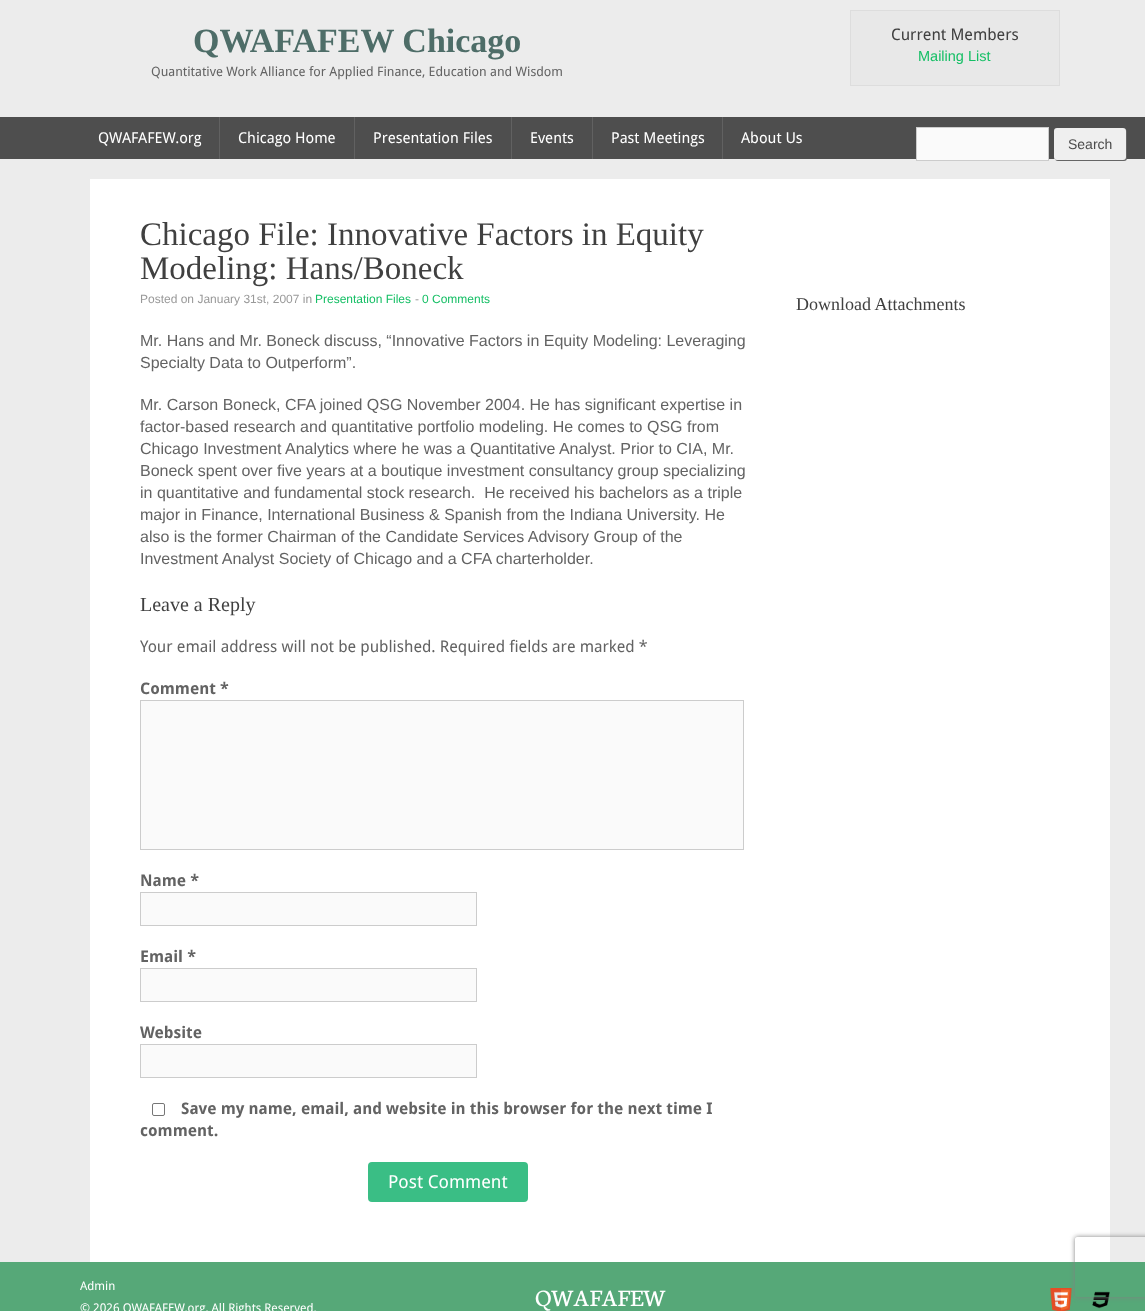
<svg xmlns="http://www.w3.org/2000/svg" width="1145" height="1311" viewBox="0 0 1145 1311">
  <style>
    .t1 { font: bold 34px Liberation Serif; fill: #4e6d68; }
    .t2 { font: 13px Droid Sans; fill: #636363; }
    .t3 { font: 16px Droid Sans; fill: #404040; }
    .t4 { font: 14.5px Liberation Sans; fill: #15bf65; }
    .t5 { font: 15px Droid Sans; fill: #fff; }
    .t6 { font: 14px Liberation Sans; fill: #4a4a4a; }
    .t7 { font: 33px Liberation Serif; fill: #404040; }
    .t8 { font: 12px Liberation Sans; fill: #999; }
    .t9 { font: 12px Liberation Sans; fill: #15bf65; }
    .t10 { font: 16px Liberation Sans; fill: #636363; }
    .t11 { font: 20px Liberation Serif; fill: #404040; }
    .t12 { font: 16px Droid Sans; fill: #636363; }
    .t13 { font: bold 16px Droid Sans; fill: #636363; }
    .t14 { font: 18px Droid Sans; fill: #fff; }
    .t15 { font: 18px Liberation Serif; fill: #404040; }
    .t16 { font: 12px Droid Sans; fill: #fff; }
    .t17 { font: 25px Neuton; fill: #fff; }
  </style>
  <defs>
    <clipPath id="clip1"><path d="M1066 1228H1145V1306H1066ZM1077 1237H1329C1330 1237 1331 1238 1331 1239V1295C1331 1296 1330 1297 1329 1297H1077C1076 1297 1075 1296 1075 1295V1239C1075 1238 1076 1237 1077 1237Z" clip-rule="evenodd"/></clipPath>
  </defs>
  <rect width="100%" height="100%" fill="#ececec"/>
  <text x="193" y="52" class="t1">QWAFAFEW Chicago</text>
  <text x="151" y="76" class="t2">Quantitative Work Alliance for Applied Finance, Education and Wisdom</text>
  <rect x="850.5" y="10.5" width="209" height="75" fill="#e8e8e8" stroke="#ddd"/>
  <text x="891" y="40" class="t3">Current Members</text>
  <text x="918" y="61" class="t4">Mailing List</text>
  <rect x="0" y="117" width="1145" height="42" fill="#4e4e4e"/>
  <rect x="219" y="117" width="1" height="42" fill="#616161"/>
  <text x="98" y="143" class="t5">QWAFAFEW.org</text>
  <rect x="354" y="117" width="1" height="42" fill="#616161"/>
  <text x="238" y="143" class="t5">Chicago Home</text>
  <rect x="511" y="117" width="1" height="42" fill="#616161"/>
  <text x="373" y="143" class="t5">Presentation Files</text>
  <rect x="592" y="117" width="1" height="42" fill="#616161"/>
  <text x="530" y="143" class="t5">Events</text>
  <rect x="722" y="117" width="1" height="42" fill="#616161"/>
  <text x="611" y="143" class="t5">Past Meetings</text>
  <text x="741" y="143" class="t5">About Us</text>
  <rect x="916.5" y="127.5" width="132" height="33" fill="#fafafa" stroke="#ccc"/>
  <rect x="1055" y="129" width="72" height="32" rx="3" fill="#656565" filter="blur(0.5px)"/>
  <rect x="1054" y="128" width="72" height="32" rx="3" fill="#efefef"/>
  <text x="1068" y="149" class="t6">Search</text>
  <rect x="90" y="179" width="1020" height="1083" fill="#fff"/>
  <text x="140" y="245" class="t7">Chicago File: Innovative Factors in Equity</text>
  <text x="140" y="279" class="t7">Modeling: Hans/Boneck</text>
  <text x="140" y="303" class="t8">Posted on January 31st, 2007 in</text>
  <text x="315" y="303" class="t9">Presentation Files</text>
  <text x="415" y="303" class="t8">-</text>
  <text x="422" y="303" class="t9">0 Comments</text>
  <text x="140" y="346" class="t10">Mr. Hans and Mr. Boneck discuss, “Innovative Factors in Equity Modeling: Leveraging</text>
  <text x="140" y="368" class="t10">Specialty Data to Outperform”.</text>
  <text x="140" y="410" class="t10">Mr. Carson Boneck, CFA joined QSG November 2004. He has significant expertise in</text>
  <text x="140" y="432" class="t10">factor-based research and quantitative portfolio modeling. He comes to QSG from</text>
  <text x="140" y="454" class="t10">Chicago Investment Analytics where he was a Quantitative Analyst. Prior to CIA, Mr.</text>
  <text x="140" y="476" class="t10">Boneck spent over five years at a boutique investment consultancy group specializing</text>
  <text x="140" y="498" class="t10" xml:space="preserve">in quantitative and fundamental stock research.  He received his bachelors as a triple</text>
  <text x="140" y="520" class="t10">major in Finance, International Business &amp; Spanish from the Indiana University. He</text>
  <text x="140" y="542" class="t10">also is the former Chairman of the Candidate Services Advisory Group of the</text>
  <text x="140" y="564" class="t10">Investment Analyst Society of Chicago and a CFA charterholder.</text>
  <text x="140" y="611" class="t11">Leave a Reply</text>
  <text x="140" y="652" class="t12">Your email address will not be published. Required fields are marked *</text>
  <text x="140" y="694" class="t13">Comment *</text>
  <rect x="140.5" y="700.5" width="603" height="149" fill="#fafafa" stroke="#ccc"/>
  <text x="140" y="886" class="t13">Name *</text>
  <rect x="140.5" y="892.5" width="336" height="33" fill="#fafafa" stroke="#ccc"/>
  <text x="140" y="962" class="t13">Email *</text>
  <rect x="140.5" y="968.5" width="336" height="33" fill="#fafafa" stroke="#ccc"/>
  <text x="140" y="1038" class="t13">Website</text>
  <rect x="140.5" y="1044.5" width="336" height="33" fill="#fafafa" stroke="#ccc"/>
  <rect x="152.5" y="1103.5" width="12" height="12" rx="1.5" fill="none" stroke="#767676"/>
  <text x="181" y="1114" class="t13">Save my name, email, and website in this browser for the next time I</text>
  <text x="140" y="1136" class="t13">comment.</text>
  <rect x="368" y="1162" width="160" height="40" rx="4" fill="#3abe85"/>
  <text x="388" y="1188" class="t14">Post Comment</text>
  <text x="796" y="310" class="t15">Download Attachments</text>
  <rect x="0" y="1262" width="1145" height="49" fill="#56a878"/>
  <text x="80" y="1290" class="t16">Admin</text>
  <text x="80" y="1312" class="t16">© 2026 QWAFAFEW.org, All Rights Reserved.</text>
  <text x="535" y="1306" class="t17">QWAFAFEW</text>
  <image x="1050" y="1288" width="23" height="23" href="images/1.png"/>
  <image x="1092" y="1291" width="18" height="18" href="images/2.png"/>
  <g clip-path="url(#clip1)">
    <rect x="1075" y="1237" width="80" height="60" rx="2" fill="#808080" filter="blur(2.5px)"/>
  </g>
</svg>
